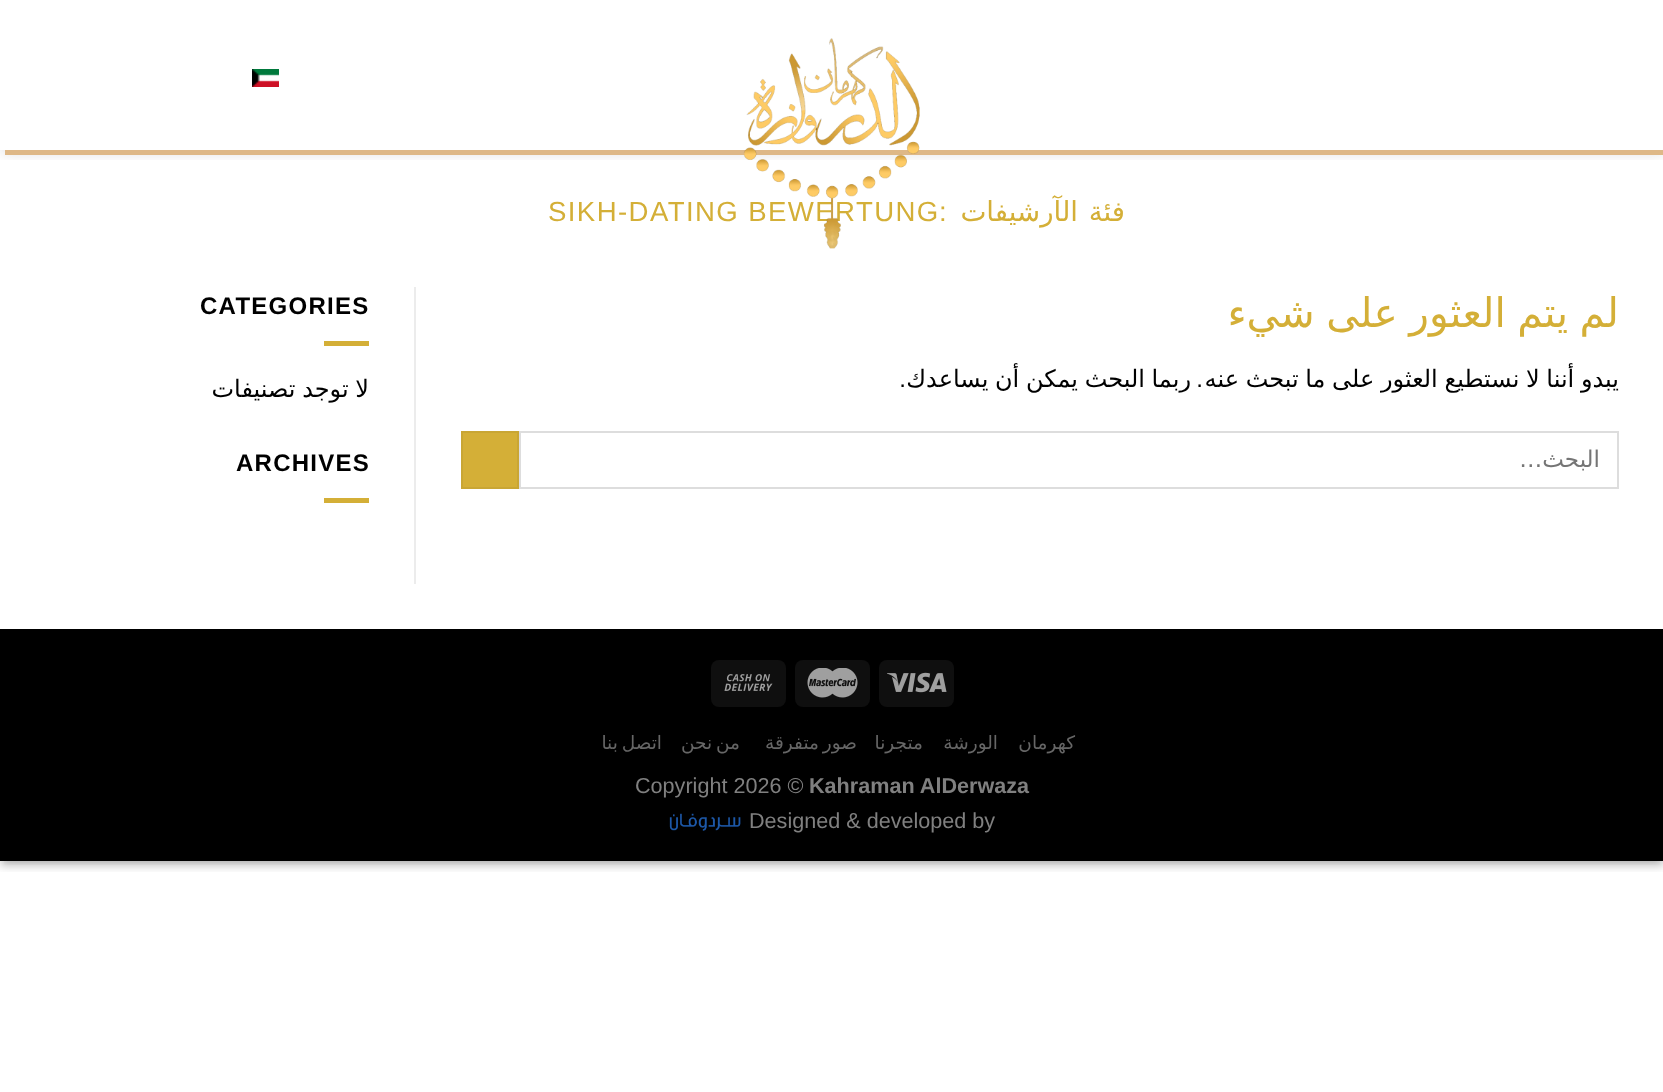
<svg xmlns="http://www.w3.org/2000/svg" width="1663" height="1092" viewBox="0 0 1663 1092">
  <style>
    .t1 { font: 27.6px Liberation Sans; letter-spacing: 1.4px; fill: #d4af37; }
    .t2 { font: 27.6px DejaVu Sans; letter-spacing: 1.4px; direction: rtl; fill: #d4af37; }
    .t3 { font: 27.6px Liberation Sans; letter-spacing: 1.4px; direction: rtl; fill: #d4af37; }
    .t4 { font: 40.75px DejaVu Sans; direction: rtl; fill: #d4af37; }
    .t5 { font: 24px DejaVu Sans; direction: rtl; fill: #000; }
    .t6 { font: 24px Liberation Sans; direction: rtl; fill: #000; }
    .t7 { font: 23px DejaVu Sans; direction: rtl; fill: #757575; }
    .t8 { font: bold 24px Liberation Sans; letter-spacing: 1.25px; fill: #000; }
    .t9 { font: 18.5px DejaVu Sans; letter-spacing: 1px; direction: rtl; fill: #666; }
    .t10 { font: bold 21.6px Liberation Sans; fill: #808080; }
    .t11 { font: 21.6px Liberation Sans; fill: #808080; }
  </style>
  <defs>
    <clipPath id="clip1"><rect x="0" y="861" width="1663" height="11"/></clipPath>
    <clipPath id="clip2"><rect x="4" y="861" width="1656" height="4"/></clipPath>
    <clipPath id="clip3"><rect x="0" y="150" width="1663" height="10"/></clipPath>
  </defs>
  <rect width="100%" height="100%" fill="#fff"/>
  <g clip-path="url(#clip1)">
    <rect x="0" y="5" width="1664" height="861" fill="#0000003b" filter="blur(4.5px)"/>
  </g>
  <g clip-path="url(#clip2)">
    <rect x="6" y="11" width="1652" height="849" fill="#00000029" filter="blur(4.5px)"/>
  </g>
  <g clip-path="url(#clip3)">
    <rect x="2" y="2" width="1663" height="150" fill="#00000026" filter="blur(7.5px)"/>
  </g>
  <path d="M5 150V155H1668V5H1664V150Z" fill="#deb887"/>
  <text x="548" y="221" class="t1">SIKH-DATING BEWERTUNG</text>
  <image x="743" y="38" width="177" height="211" href="images/1.png"/>
  <image x="252" y="69" width="27" height="18" href="images/2.png"/>
  <text x="1125" y="221" class="t2">فئة</text>
  <text x="1078" y="221" class="t2">الآرشيفات</text>
  <text x="948" y="221" class="t3">:</text>
  <text x="1619" y="327" word-spacing="-1.5" class="t4">لم يتم العثور على شيء</text>
  <text x="1619" y="387" word-spacing="-1" class="t5">يبدو أننا لا نستطيع العثور على ما تبحث عنه</text>
  <text x="1203" y="387" class="t6">.</text>
  <text x="1191" y="387" word-spacing="-1" class="t5">ربما البحث يمكن أن يساعدك</text>
  <text x="906" y="387" class="t6">.</text>
  <rect x="520" y="432" width="1098" height="56" fill="none" stroke="#ddd" stroke-width="2"/>
  <text x="1600" y="467" class="t7">البحث…</text>
  <rect x="462" y="432" width="56" height="56" fill="#d4af37" stroke="#c9a634" stroke-width="2"/>
  <rect x="414" y="287" width="2" height="297" fill="#ececec"/>
  <text x="200" y="314" class="t8">CATEGORIES</text>
  <rect x="324" y="341" width="45" height="5" fill="#d4af37"/>
  <text x="369" y="397" word-spacing="-1" class="t5">لا توجد تصنيفات</text>
  <text x="236" y="471" class="t8">ARCHIVES</text>
  <rect x="324" y="498" width="45" height="5" fill="#d4af37"/>
  <rect x="0" y="629" width="1663" height="232" fill="#000"/>
  <rect x="879" y="660" width="75" height="47" rx="8" fill="#0f0f0f"/>
  <image x="887" y="672" width="60" height="21" href="images/3.png"/>
  <rect x="795" y="660" width="75" height="47" rx="8" fill="#0f0f0f"/>
  <image x="807" y="668" width="51" height="30" href="images/4.png"/>
  <rect x="711" y="660" width="75" height="47" rx="8" fill="#0f0f0f"/>
  <image x="724" y="674" width="49" height="17" href="images/5.png"/>
  <text x="1075" y="749" class="t9">كهرمان</text>
  <text x="998" y="749" class="t9">الورشة</text>
  <text x="923" y="749" class="t9">متجرنا</text>
  <text x="857" y="749" word-spacing="-2" class="t9">صور متفرقة</text>
  <text x="740" y="749" word-spacing="-2" class="t9">من نحن</text>
  <text x="662" y="749" word-spacing="-2" class="t9">اتصل بنا</text>
  <text x="809" y="793" class="t10">Kahraman AlDerwaza</text>
  <text x="635" y="793" class="t11">Copyright 2026 ©</text>
  <text x="749" y="828" class="t11">Designed &amp; developed by</text>
  <image x="669" y="813" width="72" height="18" href="images/6.png"/>
</svg>
